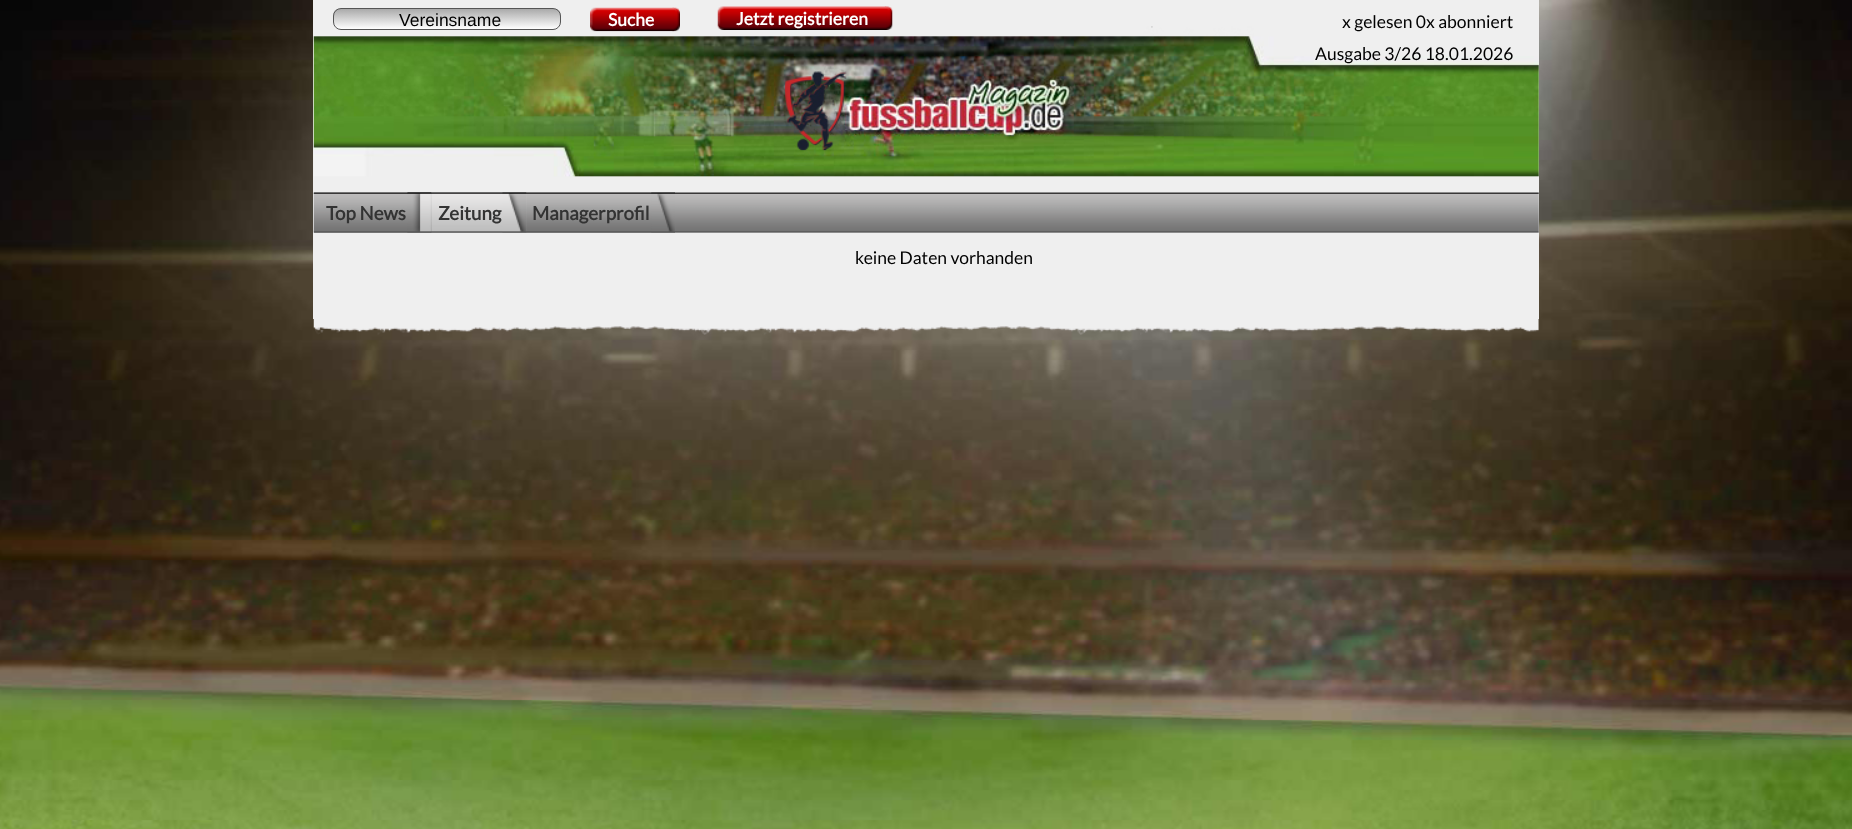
<svg xmlns="http://www.w3.org/2000/svg" width="1852" height="829" viewBox="0 0 1852 829">
  <style>
    .t1 { font: 17.5px Liberation Sans; fill: #000; }
    .t2 { font: bold 17.5px Lato; fill: #fff; }
    .t3 { font: 17.5px Lato; fill: #000; }
    .t4 { font: bold 18.75px Lato; fill: #333; }
  </style>
  <defs>
    <clipPath id="clip1"><rect x="333" y="8" width="228" height="22" rx="8"/></clipPath>
    <linearGradient id="g1" gradientUnits="userSpaceOnUse" x1="334" y1="9" x2="334" y2="29"><stop offset="0" stop-color="#aaa"/><stop offset="1" stop-color="#fff"/></linearGradient>
  </defs>
  <rect width="100%" height="100%" fill="#fff"/>
  <image x="0" y="0" width="1852" height="829" href="images/1.png"/>
  <rect x="313" y="0" width="1226" height="319" fill="#efefef"/>
  <image x="313" y="26" width="1226" height="151" href="images/2.png"/>
  <g clip-path="url(#clip1)">
    <rect x="333" y="9" width="228" height="20" fill="url(#g1)"/>
  </g>
  <rect x="333.5" y="8.5" width="227" height="21" rx="7.5" fill="none" stroke="#555"/>
  <text x="399" y="26" class="t1">Vereinsname</text>
  <image x="672" y="7" width="8" height="25" href="images/3.png"/>
  <image x="590" y="7" width="84" height="25" href="images/4.png"/>
  <text x="608" y="26" class="t2">Suche</text>
  <image x="884" y="6" width="9" height="24" href="images/5.png"/>
  <image x="717" y="6" width="170" height="24" href="images/6.png"/>
  <text x="736" y="25" class="t2">Jetzt registrieren</text>
  <text x="1342" y="28" class="t3">x gelesen 0x abonniert</text>
  <text x="1315" y="60" class="t3">Ausgabe 3/26 18.01.2026</text>
  <image x="313" y="192" width="1226" height="41" href="images/7.png"/>
  <image x="313" y="192" width="119" height="41" href="images/8.png"/>
  <image x="407" y="192" width="25" height="41" href="images/9.png"/>
  <text x="326" y="220" class="t4">Top News</text>
  <image x="431" y="192" width="96" height="41" href="images/10.png"/>
  <image x="407" y="192" width="25" height="41" href="images/11.png"/>
  <image x="502" y="192" width="25" height="41" href="images/12.png"/>
  <text x="438" y="220" class="t4">Zeitung</text>
  <image x="526" y="192" width="149" height="41" href="images/13.png"/>
  <image x="651" y="192" width="24" height="41" href="images/14.png"/>
  <text x="532" y="220" class="t4">Managerprofil</text>
  <text x="855" y="264" class="t3">keine Daten vorhanden</text>
  <image x="313" y="319" width="1226" height="16" href="images/15.png"/>
</svg>
